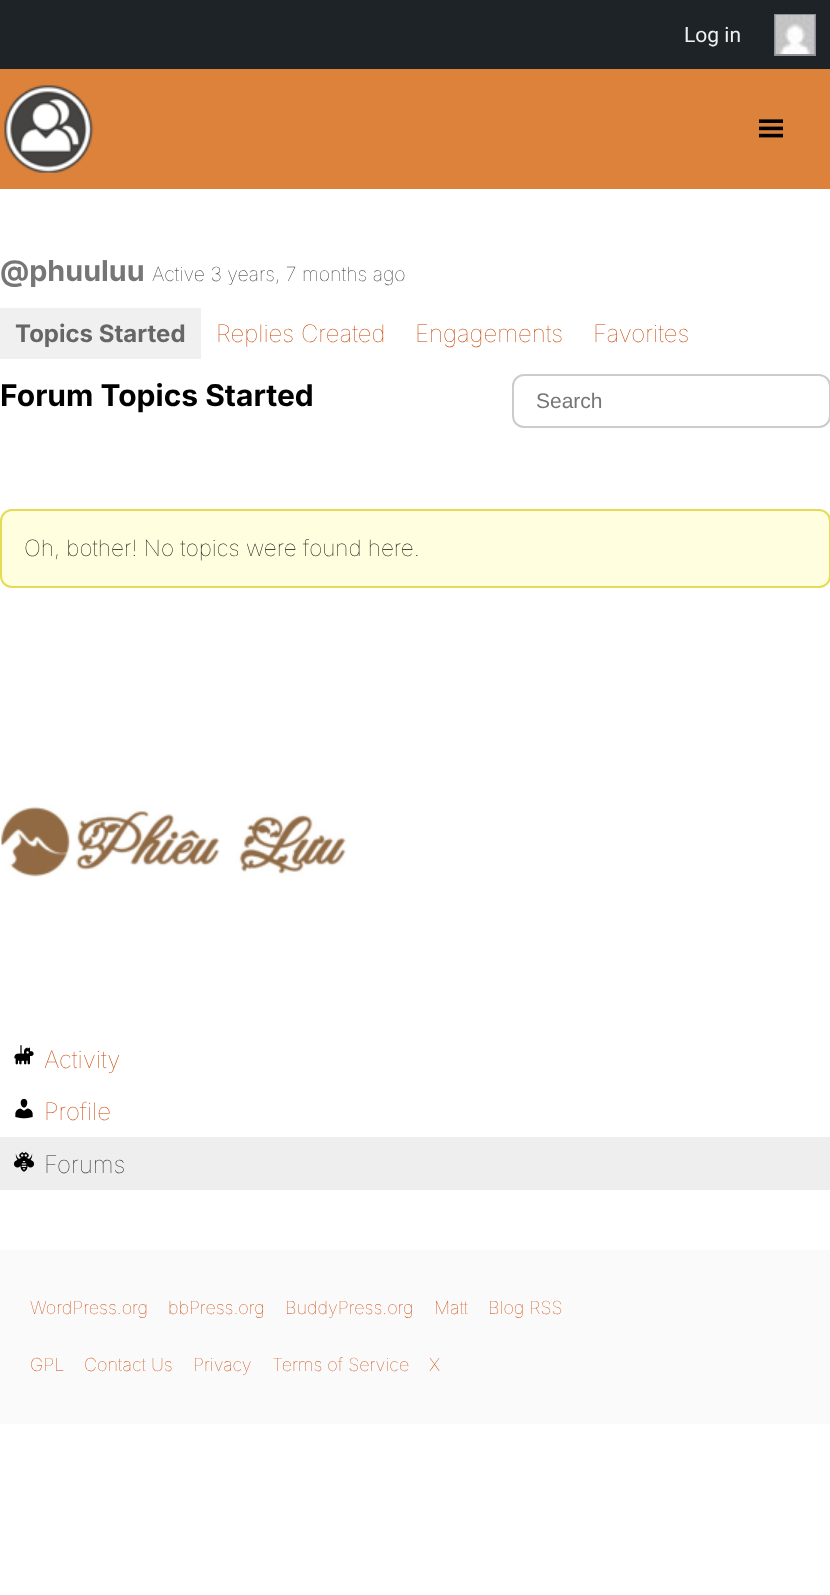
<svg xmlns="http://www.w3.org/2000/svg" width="830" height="1595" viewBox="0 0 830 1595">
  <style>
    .t1 { font: 21px Roboto; fill: #f0f0f1; }
    .t2 { font: bold 28.75px Inter; fill: #767676; }
    .t3 { font: 100 19.5px Inter; fill: #222; }
    .t4 { font: bold 24px Inter; fill: #666; }
    .t5 { font: 100 24px Inter; fill: #c74200; }
    .t6 { font: bold 30px Inter; fill: #000; }
    .t7 { font: 21px Liberation Sans; fill: #767676; }
    .t8 { font: 100 22.5px Inter; fill: #000; }
    .t9 { font: 100 24px Inter; fill: #222; }
    .t10 { font: 100 18px Inter; fill: #c74200; }
  </style>
  <rect width="100%" height="100%" fill="#fff"/>
  <rect x="0" y="0" width="830" height="69" fill="#1d2327"/>
  <text x="684" y="42" class="t1">Log in</text>
  <rect x="775" y="15" width="40" height="40" fill="none" stroke="#8c8f94" stroke-width="2"/>
  <image x="775" y="15" width="40" height="39" href="images/1.png"/>
  <rect x="0" y="69" width="830" height="120" fill="#dd823b"/>
  <image x="4" y="85" width="90" height="88" href="images/2.png"/>
  <image x="759" y="119" width="24" height="19" href="images/3.png"/>
  <text x="0" y="281" class="t2">@phuuluu</text>
  <text x="152" y="281" class="t3">Active 3 years, 7 months ago</text>
  <rect x="0" y="308" width="201" height="51" fill="#f0f0f0"/>
  <text x="15" y="342" class="t4">Topics Started</text>
  <text x="216" y="342" class="t5">Replies Created</text>
  <text x="415" y="342" class="t5">Engagements</text>
  <text x="593" y="342" class="t5">Favorites</text>
  <text x="0" y="406" class="t6">Forum Topics Started</text>
  <rect x="513" y="375" width="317" height="52" rx="11" fill="none" stroke="#ccc" stroke-width="2"/>
  <text x="536" y="408" class="t7">Search</text>
  <rect x="1" y="510" width="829" height="77" rx="11" fill="#ffffe0" stroke="#e6db55" stroke-width="2"/>
  <text x="24" y="556" class="t8">Oh, bother! No topics were found here.</text>
  <image x="1" y="806" width="345" height="71" href="images/4.png"/>
  <image x="14" y="1045" width="20" height="20" href="images/5.png"/>
  <text x="44" y="1068" class="t5">Activity</text>
  <image x="15" y="1098" width="18" height="21" href="images/6.png"/>
  <text x="44" y="1120" class="t5">Profile</text>
  <rect x="0" y="1137" width="830" height="53" fill="#eee"/>
  <image x="13" y="1151" width="22" height="21" href="images/7.png"/>
  <text x="44" y="1173" class="t9">Forums</text>
  <rect x="0" y="1250" width="830" height="174" fill="#fafafa"/>
  <text x="30" y="1314" class="t10">WordPress.org</text>
  <text x="168" y="1314" class="t10">bbPress.org</text>
  <text x="285" y="1314" class="t10">BuddyPress.org</text>
  <text x="434" y="1314" class="t10">Matt</text>
  <text x="488" y="1314" class="t10">Blog RSS</text>
  <text x="30" y="1371" class="t10">GPL</text>
  <text x="84" y="1371" class="t10">Contact Us</text>
  <text x="193" y="1371" class="t10">Privacy</text>
  <text x="272" y="1371" class="t10">Terms of Service</text>
  <text x="429" y="1371" class="t10">X</text>
</svg>
